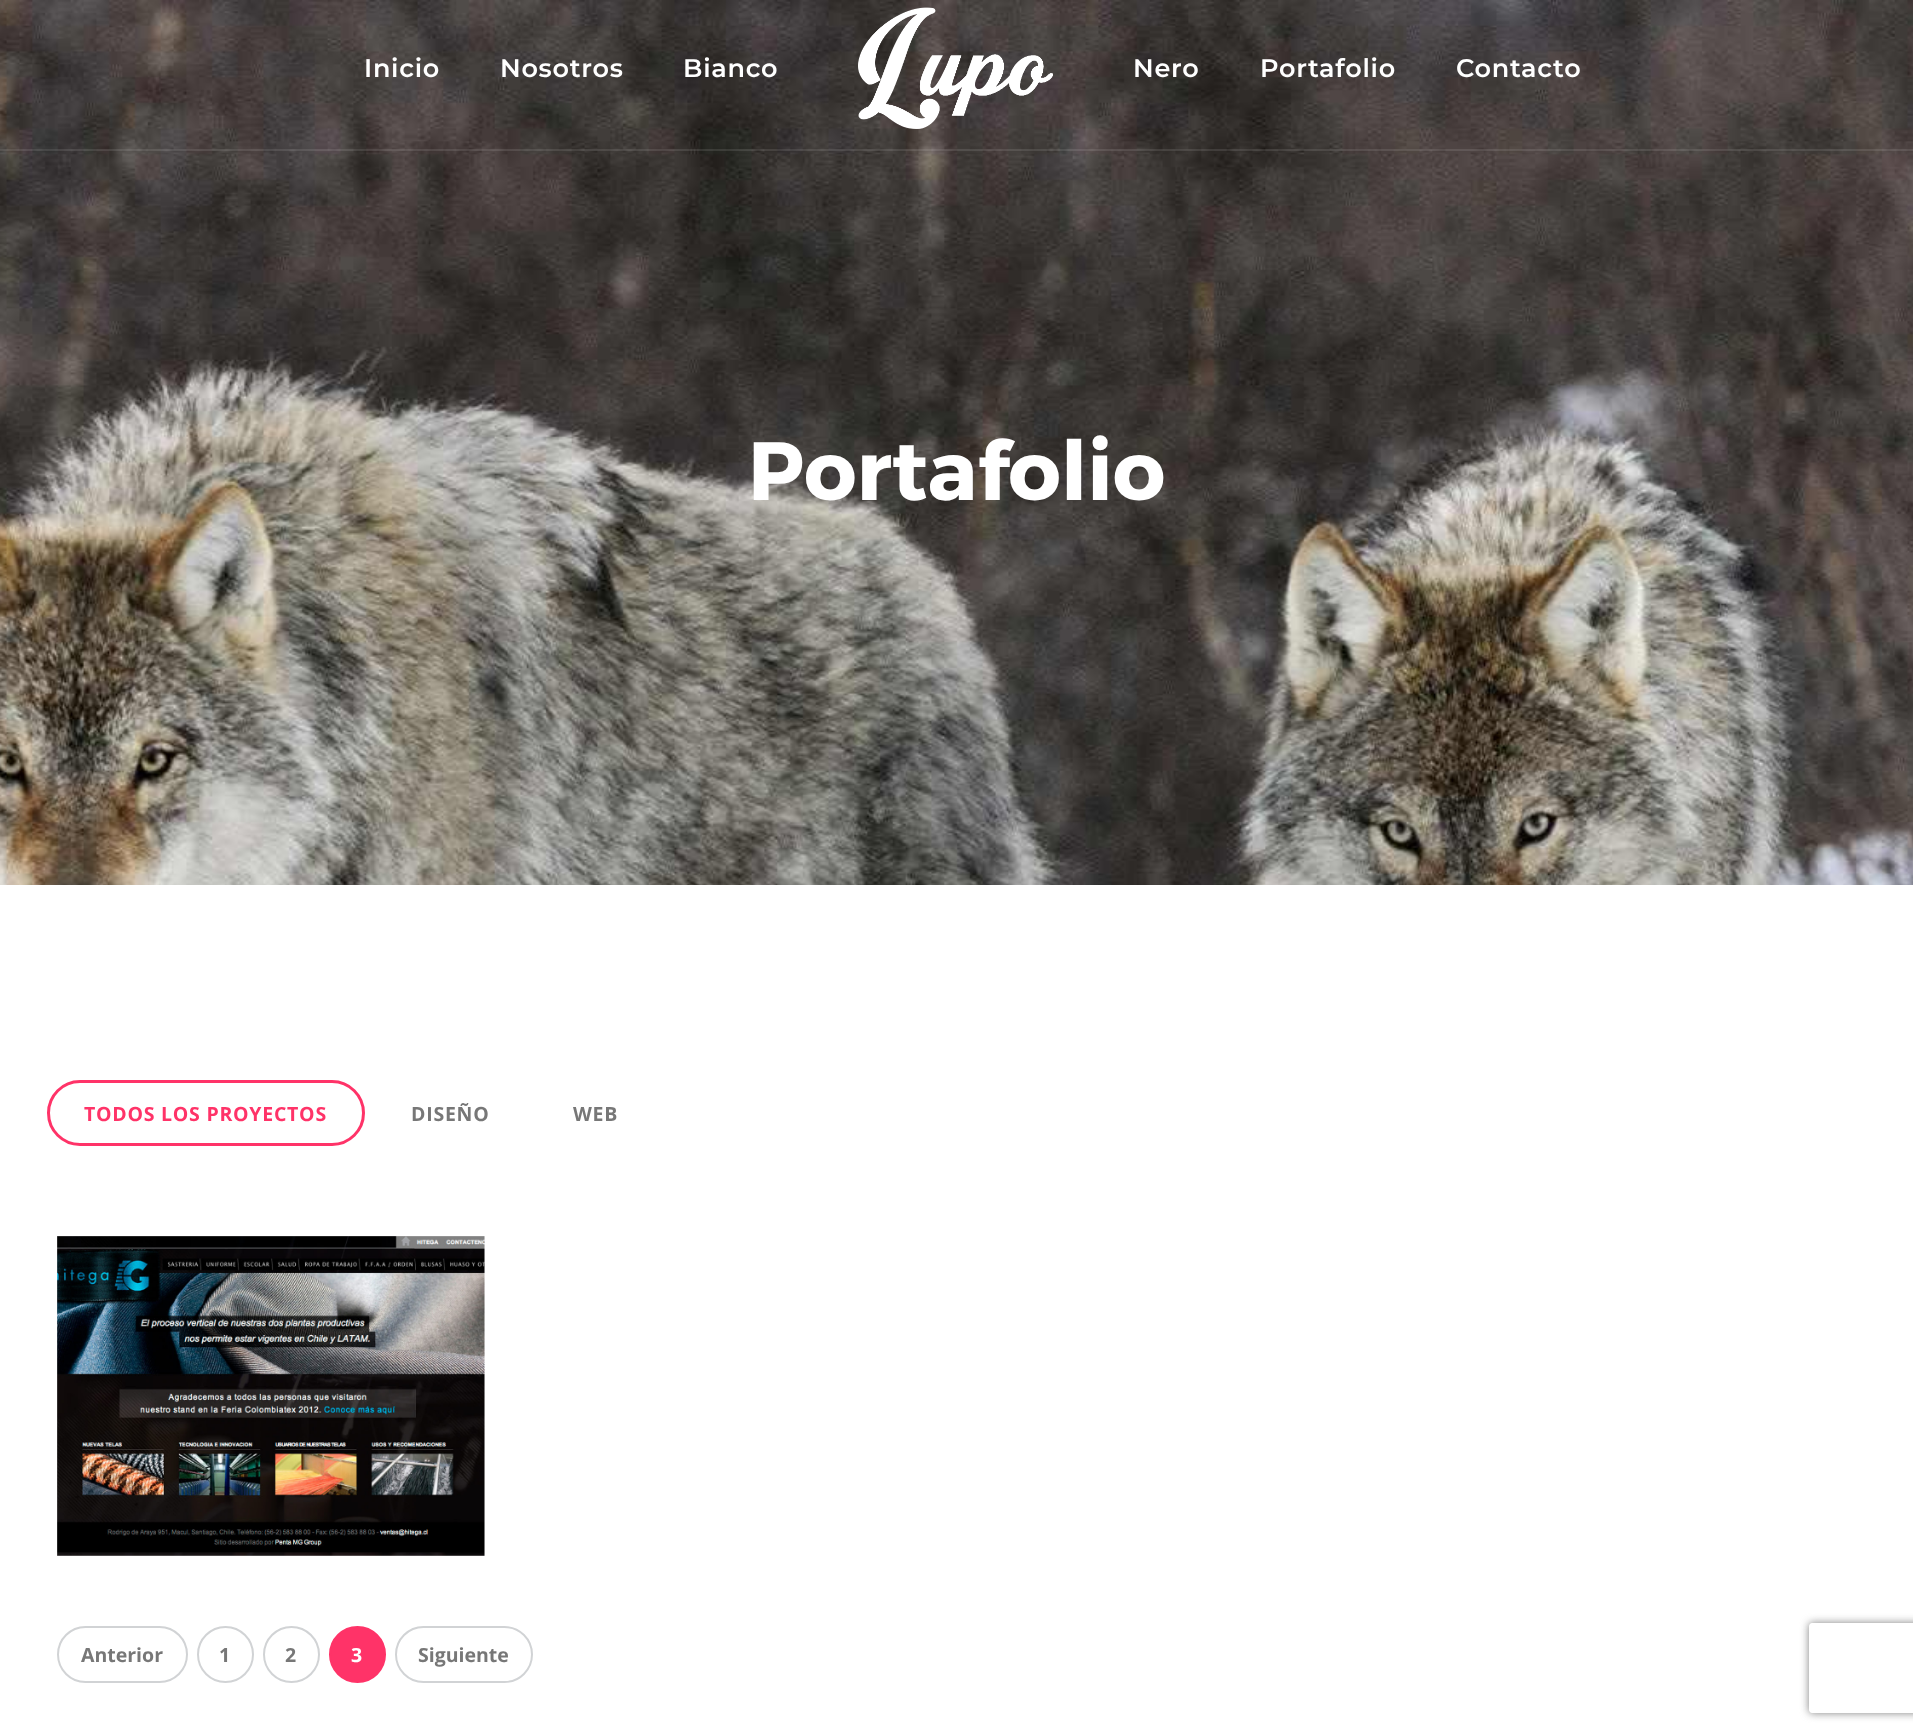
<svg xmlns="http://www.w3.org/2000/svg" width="1913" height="1733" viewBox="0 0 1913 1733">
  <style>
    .t1 { font: 600 25.5px Montserrat; letter-spacing: 0.75px; fill: #fff; }
    .t2 { font: bold 82.5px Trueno; fill: #fff; }
    .t3 { font: bold 19.5px Open Sans; letter-spacing: 0.75px; fill: #ff3368; }
    .t4 { font: bold 19.5px Open Sans; letter-spacing: 0.75px; fill: #777; }
    .t5 { font: bold 19.5px Open Sans; fill: #777; }
    .t6 { font: bold 19.5px Open Sans; fill: #fff; }
  </style>
  <defs>
    <clipPath id="clip1"><path d="M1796 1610H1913V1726H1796ZM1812 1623H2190C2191.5 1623 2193 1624.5 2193 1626V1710C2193 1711.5 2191.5 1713 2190 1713H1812C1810.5 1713 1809 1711.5 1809 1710V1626C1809 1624.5 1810.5 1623 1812 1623Z" clip-rule="evenodd"/></clipPath>
  </defs>
  <rect width="100%" height="100%" fill="#fff"/>
  <image x="0" y="0" width="1913" height="885" href="images/2.png"/>
  <rect x="0" y="149" width="1913" height="2" fill="#ffffff1a"/>
  <text x="364" y="77" class="t1">Inicio</text>
  <text x="500" y="77" class="t1">Nosotros</text>
  <text x="683" y="77" class="t1">Bianco</text>
  <image x="858" y="7" width="195" height="122" href="images/1.png"/>
  <text x="1133" y="77" class="t1">Nero</text>
  <text x="1260" y="77" class="t1">Portafolio</text>
  <text x="1456" y="77" class="t1">Contacto</text>
  <text x="748" y="500" class="t2">Portafolio</text>
  <rect x="48.5" y="1081.5" width="315" height="63" rx="31.5" fill="none" stroke="#ff3368" stroke-width="3"/>
  <text x="84" y="1121" class="t3">TODOS LOS PROYECTOS</text>
  <text x="411" y="1121" class="t4">DISEÑO</text>
  <text x="573" y="1121" class="t4">WEB</text>
  <image x="57" y="1236" width="428" height="320" href="images/3.png"/>
  <rect x="58" y="1627" width="129" height="55" rx="27.5" fill="none" stroke="#d1d3d5" stroke-width="2"/>
  <text x="81" y="1662" class="t5">Anterior</text>
  <circle cx="225.5" cy="1654.5" r="27.5" fill="none" stroke="#d1d3d5" stroke-width="2"/>
  <text x="219" y="1662" class="t5">1</text>
  <circle cx="291.5" cy="1654.5" r="27.5" fill="none" stroke="#d1d3d5" stroke-width="2"/>
  <text x="285" y="1662" class="t5">2</text>
  <circle cx="357.5" cy="1654.5" r="27.5" fill="#ff3368" stroke="#ff3368" stroke-width="2"/>
  <text x="351" y="1662" class="t6">3</text>
  <rect x="396" y="1627" width="136" height="55" rx="27.5" fill="none" stroke="#d1d3d5" stroke-width="2"/>
  <text x="418" y="1662" class="t5">Siguiente</text>
  <g clip-path="url(#clip1)">
    <rect x="1809" y="1623" width="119" height="90" rx="3" fill="#808080" filter="blur(4px)"/>
  </g>
</svg>
